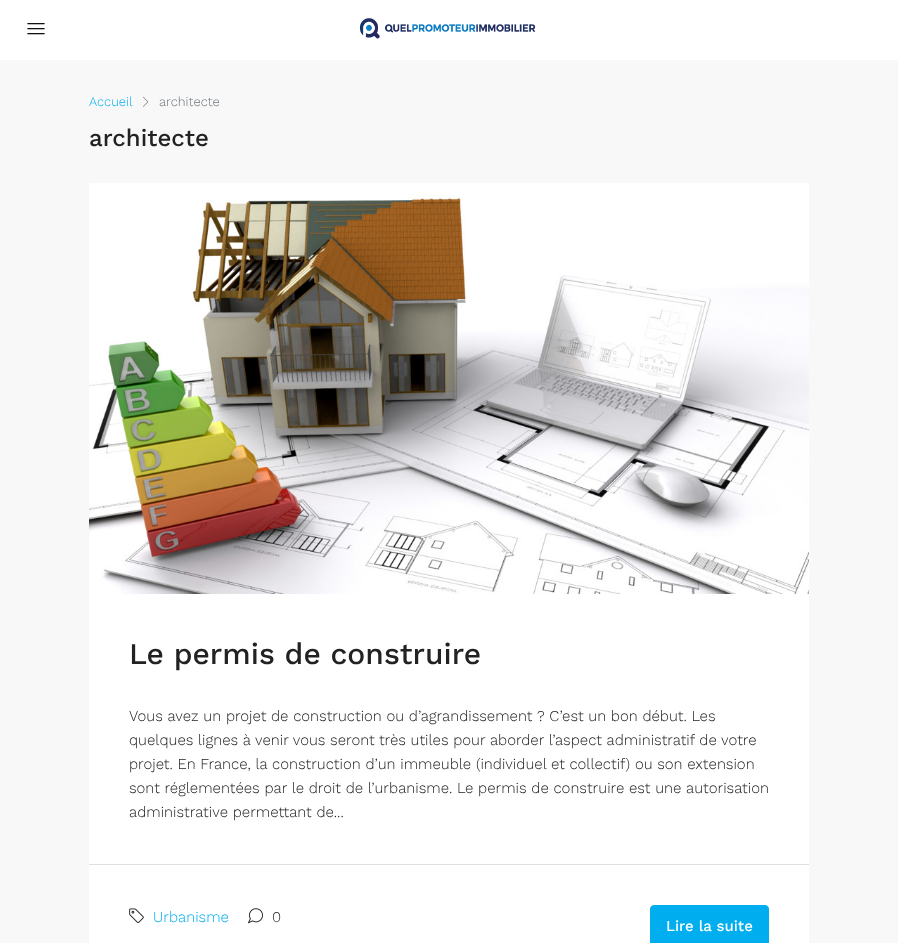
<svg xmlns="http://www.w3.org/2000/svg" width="898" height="943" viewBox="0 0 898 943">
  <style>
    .t1 { font: 300 13px Work Sans; fill: #00aeef; }
    .t2 { font: 300 13px Work Sans; fill: #6c757d; }
    .t3 { font: 500 24px Work Sans; fill: #222; }
    .t4 { font: 500 30px Work Sans; fill: #222; }
    .t5 { font: 300 15px Work Sans; fill: #222; }
    .t6 { font: 300 15px Work Sans; fill: #00aeef; }
    .t7 { font: 500 15px Work Sans; fill: #fff; }
  </style>
  <rect width="100%" height="100%" fill="#f8f8f8"/>
  <rect x="0" y="0" width="898" height="60" fill="#fff"/>
  <image x="27" y="23" width="18" height="12" href="images/1.png"/>
  <image x="360" y="18" width="176" height="21" href="images/2.png"/>
  <text x="89" y="106" class="t1">Accueil</text>
  <image x="143" y="96" width="6" height="11" href="images/3.png"/>
  <text x="159" y="106" class="t2">architecte</text>
  <text x="89" y="146" class="t3">architecte</text>
  <rect x="89" y="183" width="720" height="760" fill="#fff"/>
  <image x="89" y="194" width="720" height="400" href="images/4.png"/>
  <text x="129" y="664" class="t4">Le permis de construire</text>
  <text x="129" y="721" class="t5">Vous avez un projet de construction ou d’agrandissement ? C’est un bon début. Les</text>
  <text x="129" y="745" class="t5">quelques lignes à venir vous seront très utiles pour aborder l’aspect administratif de votre</text>
  <text x="129" y="769" class="t5">projet. En France, la construction d’un immeuble (individuel et collectif) ou son extension</text>
  <text x="129" y="793" class="t5">sont réglementées par le droit de l’urbanisme. Le permis de construire est une autorisation</text>
  <text x="129" y="817" class="t5">administrative permettant de...</text>
  <rect x="89" y="864" width="720" height="1" fill="#dce0e0"/>
  <image x="129" y="908" width="15" height="15" href="images/5.png"/>
  <text x="153" y="922" class="t6">Urbanisme</text>
  <image x="248" y="908" width="15" height="16" href="images/6.png"/>
  <text x="272" y="922" class="t5">0</text>
  <rect x="650.5" y="905.5" width="118" height="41" rx="3.5" fill="#00aeef" stroke="#00aeef"/>
  <text x="666" y="931" class="t7">Lire la suite</text>
</svg>
